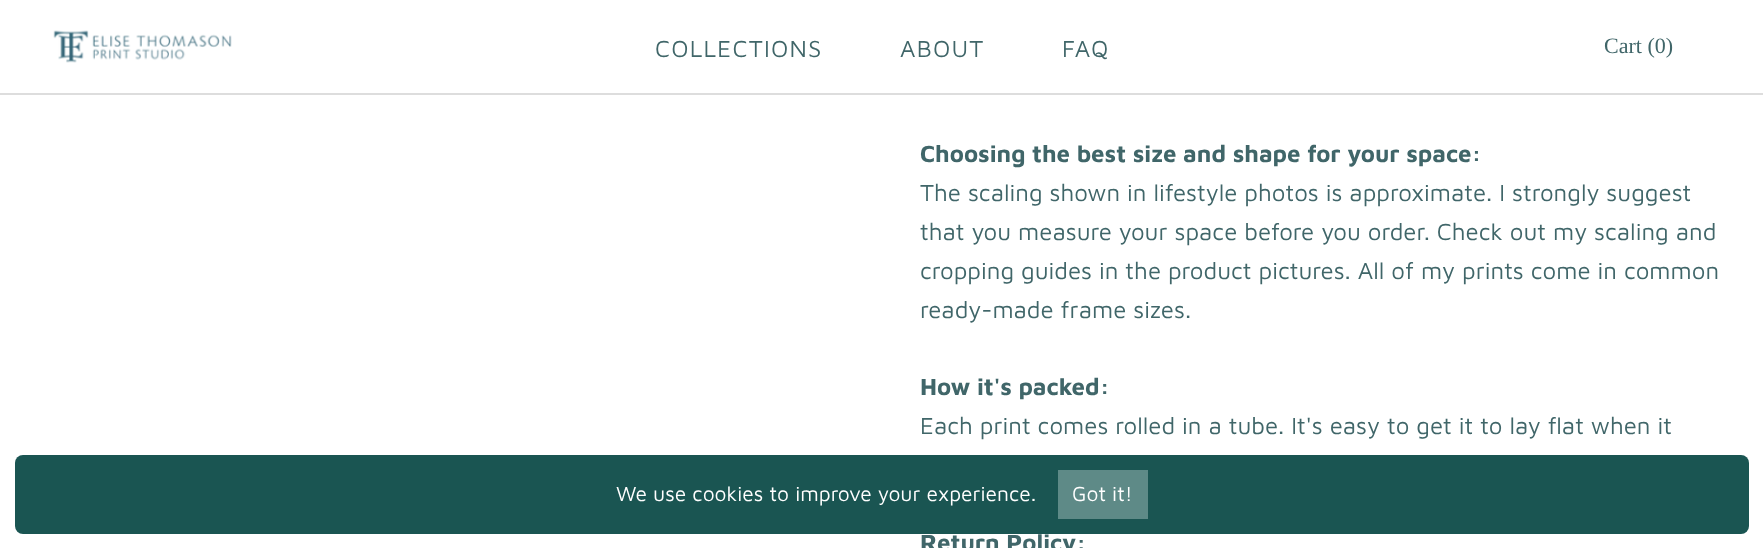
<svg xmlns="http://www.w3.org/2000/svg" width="1763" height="548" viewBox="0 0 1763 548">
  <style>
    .t1 { font: 24px Maven Pro; letter-spacing: 1.25px; fill: #406669; }
    .t2 { font: 22px Liberation Serif; fill: #406669; }
    .t3 { font: 21px Maven Pro; fill: #fff; }
    .t4 { font: bold 24px Maven Pro; fill: #406669; }
    .t5 { font: 24px Maven Pro; fill: #406669; }
  </style>
  <rect width="100%" height="100%" fill="#fff"/>
  <rect x="0" y="93" width="1763" height="2" fill="#ddd"/>
  <image x="53" y="30" width="179" height="33" href="images/1.png"/>
  <text x="655" y="57" class="t1">COLLECTIONS</text>
  <text x="900" y="57" class="t1">ABOUT</text>
  <text x="1062" y="57" class="t1">FAQ</text>
  <text x="1604" y="53" class="t2">Cart (0)</text>
  <rect x="15" y="455" width="1734" height="79" rx="8" fill="#1a5552"/>
  <text x="616" y="501" class="t3">We use cookies to improve your experience.</text>
  <rect x="1058" y="470" width="90" height="49" fill="#5e8a87"/>
  <text x="1072" y="501" class="t3">Got it!</text>
  <text x="920" y="162" class="t4">Choosing the best size and shape for your space:</text>
  <text x="920" y="201" class="t5">The scaling shown in lifestyle photos is approximate. I strongly suggest</text>
  <text x="920" y="240" class="t5">that you measure your space before you order. Check out my scaling and</text>
  <text x="920" y="279" class="t5">cropping guides in the product pictures. All of my prints come in common</text>
  <text x="920" y="318" class="t5">ready-made frame sizes.</text>
  <text x="920" y="395" class="t4">How it's packed:</text>
  <text x="920" y="434" class="t5">Each print comes rolled in a tube. It's easy to get it to lay flat when it</text>
  <text x="920" y="551" class="t4">Return Policy:</text>
</svg>
